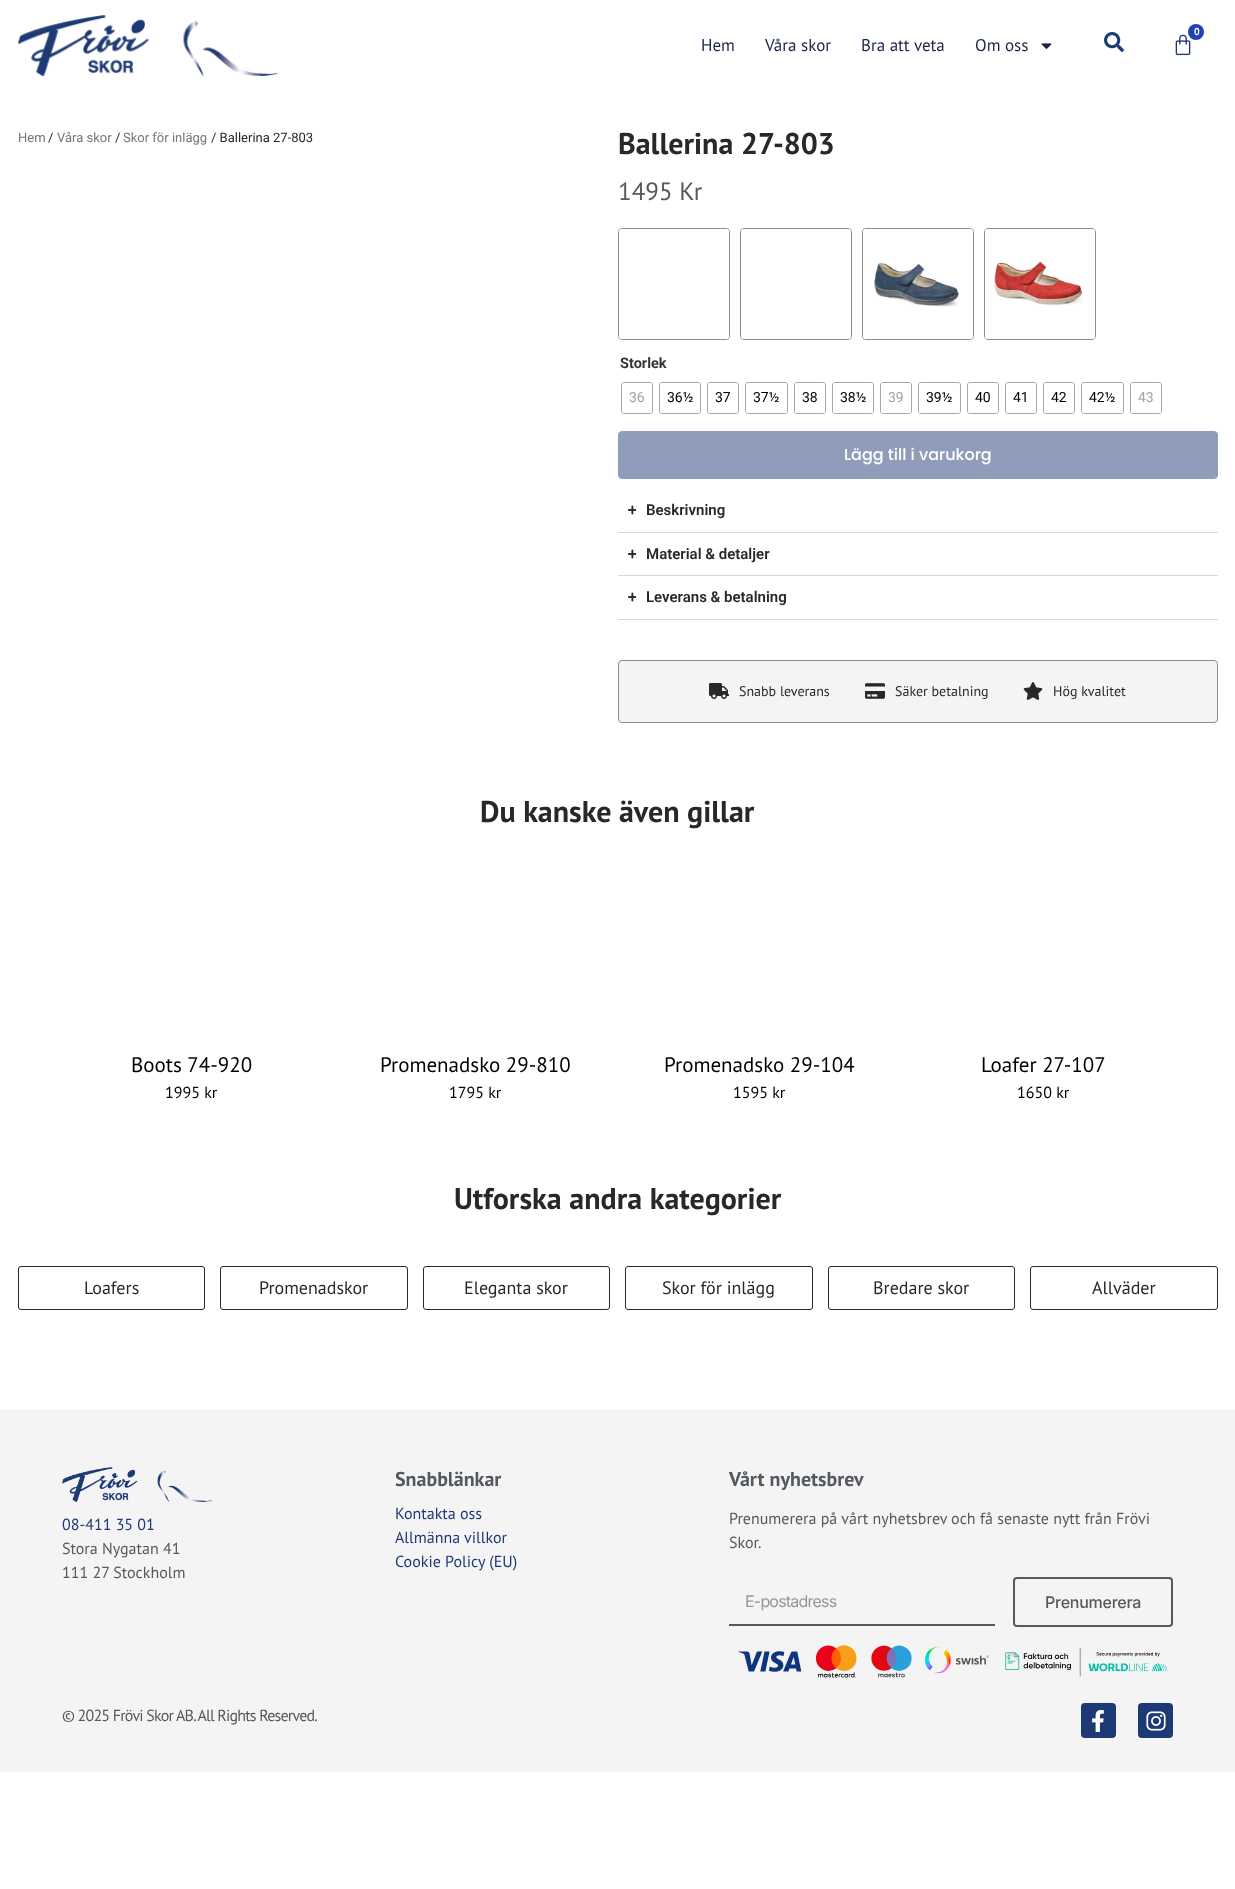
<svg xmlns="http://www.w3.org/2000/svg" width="1235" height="1889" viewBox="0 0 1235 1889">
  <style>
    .t1 { font: 17px PT Sans; fill: #1c244b; }
    .t2 { font: bold 10px PT Sans; fill: #fff; }
    .t3 { font: 13px Roboto; fill: #767676; }
    .t4 { font: 13px Roboto; fill: #282828; }
    .t5 { font: bold 30px PT Sans; fill: #282828; }
    .t6 { font: 25px PT Sans; fill: #54595f; }
    .t7 { font: bold 14.5px Roboto; fill: #333; }
    .t8 { font: 14px Roboto; fill: #a3a3a3; }
    .t9 { font: 14px Roboto; fill: #000; }
    .t10 { font: 500 16px Poppins; fill: #fff; }
    .t11 { font: 600 15px Roboto; fill: #282828; }
    .t12 { font: 14px PT Sans; fill: #282828; }
    .t13 { font: 21px PT Sans; fill: #000; }
    .t14 { font: 16px PT Sans; fill: #000; }
    .t15 { font: 18px PT Sans; fill: #282828; }
    .t16 { font: 16px PT Sans; fill: #1e3a75; }
    .t17 { font: 16px PT Sans; fill: #54595f; }
    .t18 { font: bold 20px PT Sans; fill: #54595f; }
    .t19 { font: 16px Inter; letter-spacing: -0.8px; fill: #94979b; }
    .t20 { font: 500 16px Inter; letter-spacing: -0.25px; fill: #54595f; }
    .t21 { font: 16px PT Sans; letter-spacing: -0.8px; fill: #54595f; }
  </style>
  <rect width="100%" height="100%" fill="#fff"/>
  <image x="18" y="15" width="260" height="61" href="images/1.png"/>
  <text x="701" y="51" class="t1">Hem</text>
  <text x="765" y="51" class="t1">Våra skor</text>
  <text x="861" y="51" class="t1">Bra att veta</text>
  <text x="975" y="51" class="t1">Om oss</text>
  <image x="1041" y="43" width="11" height="6" href="images/2.png"/>
  <image x="1104" y="32" width="20" height="20" href="images/3.png"/>
  <image x="1175" y="34" width="16" height="22" href="images/4.png"/>
  <circle cx="1196" cy="32" r="8" fill="#2244af"/>
  <text x="1194" y="35" class="t2">0</text>
  <text x="18" y="142" class="t3">Hem</text>
  <text x="48" y="142" class="t4">/</text>
  <text x="57" y="142" class="t3">Våra skor</text>
  <text x="115" y="142" class="t4">/</text>
  <text x="123" y="142" class="t3">Skor för inlägg</text>
  <text x="211" y="142" class="t4">/ Ballerina 27-803</text>
  <text x="618" y="154" class="t5">Ballerina 27-803</text>
  <text x="618" y="200" class="t6">1495 Kr</text>
  <rect x="618.5" y="228.5" width="111" height="111" rx="3.5" fill="none" stroke="#8e8e8e"/>
  <rect x="619" y="229" width="110" height="110" rx="3" fill="#fff"/>
  <rect x="740.5" y="228.5" width="111" height="111" rx="3.5" fill="none" stroke="#8e8e8e"/>
  <rect x="741" y="229" width="110" height="110" rx="3" fill="#fff"/>
  <rect x="862.5" y="228.5" width="111" height="111" rx="3.5" fill="none" stroke="#8e8e8e"/>
  <rect x="863" y="229" width="110" height="110" rx="3" fill="#fff"/>
  <image x="874" y="263" width="85" height="44" href="images/5.png"/>
  <rect x="984.5" y="228.5" width="111" height="111" rx="3.5" fill="none" stroke="#8e8e8e"/>
  <rect x="985" y="229" width="110" height="110" rx="3" fill="#fff"/>
  <image x="994" y="261" width="90" height="44" href="images/6.png"/>
  <text x="620" y="368" class="t7">Storlek</text>
  <rect x="621.5" y="382.5" width="31" height="31" rx="2.5" fill="none" stroke="#a8a8a8"/>
  <rect x="622" y="383" width="30" height="30" rx="2" fill="#fff"/>
  <text x="629" y="402" class="t8">36</text>
  <rect x="659.5" y="382.5" width="41" height="31" rx="2.5" fill="none" stroke="#a8a8a8"/>
  <rect x="660" y="383" width="40" height="30" rx="2" fill="#fff"/>
  <text x="667" y="402" class="t9">36½</text>
  <rect x="707.5" y="382.5" width="31" height="31" rx="2.5" fill="none" stroke="#a8a8a8"/>
  <rect x="708" y="383" width="30" height="30" rx="2" fill="#fff"/>
  <text x="715" y="402" class="t9">37</text>
  <rect x="745.5" y="382.5" width="42" height="31" rx="2.5" fill="none" stroke="#a8a8a8"/>
  <rect x="746" y="383" width="41" height="30" rx="2" fill="#fff"/>
  <text x="753" y="402" class="t9">37½</text>
  <rect x="794.5" y="382.5" width="31" height="31" rx="2.5" fill="none" stroke="#a8a8a8"/>
  <rect x="795" y="383" width="30" height="30" rx="2" fill="#fff"/>
  <text x="802" y="402" class="t9">38</text>
  <rect x="832.5" y="382.5" width="41" height="31" rx="2.5" fill="none" stroke="#a8a8a8"/>
  <rect x="833" y="383" width="40" height="30" rx="2" fill="#fff"/>
  <text x="840" y="402" class="t9">38½</text>
  <rect x="880.5" y="382.5" width="31" height="31" rx="2.5" fill="none" stroke="#a8a8a8"/>
  <rect x="881" y="383" width="30" height="30" rx="2" fill="#fff"/>
  <text x="888" y="402" class="t8">39</text>
  <rect x="918.5" y="382.5" width="42" height="31" rx="2.5" fill="none" stroke="#a8a8a8"/>
  <rect x="919" y="383" width="41" height="30" rx="2" fill="#fff"/>
  <text x="926" y="402" class="t9">39½</text>
  <rect x="967.5" y="382.5" width="31" height="31" rx="2.5" fill="none" stroke="#a8a8a8"/>
  <rect x="968" y="383" width="30" height="30" rx="2" fill="#fff"/>
  <text x="975" y="402" class="t9">40</text>
  <rect x="1005.5" y="382.5" width="31" height="31" rx="2.5" fill="none" stroke="#a8a8a8"/>
  <rect x="1006" y="383" width="30" height="30" rx="2" fill="#fff"/>
  <text x="1013" y="402" class="t9">41</text>
  <rect x="1043.5" y="382.5" width="31" height="31" rx="2.5" fill="none" stroke="#a8a8a8"/>
  <rect x="1044" y="383" width="30" height="30" rx="2" fill="#fff"/>
  <text x="1051" y="402" class="t9">42</text>
  <rect x="1081.5" y="382.5" width="42" height="31" rx="2.5" fill="none" stroke="#a8a8a8"/>
  <rect x="1082" y="383" width="41" height="30" rx="2" fill="#fff"/>
  <text x="1089" y="402" class="t9">42½</text>
  <rect x="1130.5" y="382.5" width="31" height="31" rx="2.5" fill="none" stroke="#a8a8a8"/>
  <rect x="1131" y="383" width="30" height="30" rx="2" fill="#fff"/>
  <text x="1138" y="402" class="t8">43</text>
  <rect x="618.5" y="431.5" width="599" height="47" rx="3.5" fill="#8f9dba" stroke="#8f9dba"/>
  <text x="844" y="460" class="t10">Lägg till i varukorg</text>
  <rect x="618" y="532" width="600" height="1" fill="#d5d8dc"/>
  <image x="628" y="505" width="8" height="10" href="images/7.png"/>
  <text x="646" y="515" class="t11">Beskrivning</text>
  <rect x="618" y="575" width="600" height="1" fill="#d5d8dc"/>
  <image x="628" y="549" width="8" height="10" href="images/7.png"/>
  <text x="646" y="559" class="t11">Material &amp; detaljer</text>
  <rect x="618" y="619" width="600" height="1" fill="#d5d8dc"/>
  <image x="628" y="592" width="8" height="10" href="images/7.png"/>
  <text x="646" y="602" class="t11">Leverans &amp; betalning</text>
  <rect x="618.5" y="660.5" width="599" height="62" rx="3.5" fill="#f4f4f4" stroke="#8e8e8e"/>
  <image x="709" y="683" width="20" height="16" href="images/8.png"/>
  <text x="739" y="696" class="t12">Snabb leverans</text>
  <image x="865" y="683" width="20" height="16" href="images/9.png"/>
  <text x="895" y="696" class="t12">Säker betalning</text>
  <image x="1023" y="682" width="20" height="18" href="images/10.png"/>
  <text x="1053" y="696" class="t12">Hög kvalitet</text>
  <text x="480" y="822" class="t5">Du kanske även gillar</text>
  <text x="131" y="1072" class="t13">Boots 74-920</text>
  <text x="165" y="1098" class="t14">1995 kr</text>
  <text x="380" y="1072" class="t13">Promenadsko 29-810</text>
  <text x="449" y="1098" class="t14">1795 kr</text>
  <text x="664" y="1072" class="t13">Promenadsko 29-104</text>
  <text x="733" y="1098" class="t14">1595 kr</text>
  <text x="981" y="1072" class="t13">Loafer 27-107</text>
  <text x="1017" y="1098" class="t14">1650 kr</text>
  <text x="454" y="1209" class="t5">Utforska andra kategorier</text>
  <rect x="18.5" y="1266.5" width="186" height="43" rx="2.5" fill="none" stroke="#282828"/>
  <text x="84" y="1294" class="t15">Loafers</text>
  <rect x="220.5" y="1266.5" width="187" height="43" rx="2.5" fill="none" stroke="#282828"/>
  <text x="259" y="1294" class="t15">Promenadskor</text>
  <rect x="423.5" y="1266.5" width="186" height="43" rx="2.5" fill="none" stroke="#282828"/>
  <text x="464" y="1294" class="t15">Eleganta skor</text>
  <rect x="625.5" y="1266.5" width="187" height="43" rx="2.5" fill="none" stroke="#282828"/>
  <text x="662" y="1294" class="t15">Skor för inlägg</text>
  <rect x="828.5" y="1266.5" width="186" height="43" rx="2.5" fill="none" stroke="#282828"/>
  <text x="873" y="1294" class="t15">Bredare skor</text>
  <rect x="1030.5" y="1266.5" width="187" height="43" rx="2.5" fill="none" stroke="#282828"/>
  <text x="1092" y="1294" class="t15">Allväder</text>
  <rect x="0" y="1412" width="1235" height="360" fill="#f4f4f4"/>
  <rect x="0" y="1410" width="1235" height="2" fill="#eff1f5"/>
  <image x="62" y="1467" width="150" height="35" href="images/11.png"/>
  <text x="62" y="1530" class="t16">08-411 35 01</text>
  <text x="62" y="1554" class="t17">Stora Nygatan 41</text>
  <text x="62" y="1578" class="t17">111 27 Stockholm</text>
  <text x="395" y="1486" class="t18">Snabblänkar</text>
  <text x="395" y="1519" class="t16">Kontakta oss</text>
  <text x="395" y="1543" class="t16">Allmänna villkor</text>
  <text x="395" y="1567" class="t16">Cookie Policy (EU)</text>
  <text x="729" y="1486" class="t18">Vårt nyhetsbrev</text>
  <text x="729" y="1524" class="t17">Prenumerera på vårt nyhetsbrev och få senaste nytt från Frövi</text>
  <text x="729" y="1548" class="t17">Skor.</text>
  <rect x="729" y="1624" width="266" height="2" fill="#54595f"/>
  <text x="745" y="1607" class="t19">E-postadress</text>
  <rect x="1014" y="1578" width="158" height="48" rx="3" fill="none" stroke="#54595f" stroke-width="2"/>
  <text x="1045" y="1608" class="t20">Prenumerera</text>
  <image x="738" y="1645" width="430" height="33" href="images/12.png"/>
  <text x="62" y="1721" class="t21">© 2025 Frövi Skor AB. All Rights Reserved.</text>
  <rect x="1081" y="1703" width="35" height="35" rx="4" fill="#1e3a75"/>
  <image x="1092" y="1710" width="12" height="22" href="images/13.png"/>
  <rect x="1138" y="1703" width="35" height="35" rx="4" fill="#1e3a75"/>
  <image x="1146" y="1711" width="20" height="20" href="images/14.png"/>
</svg>
